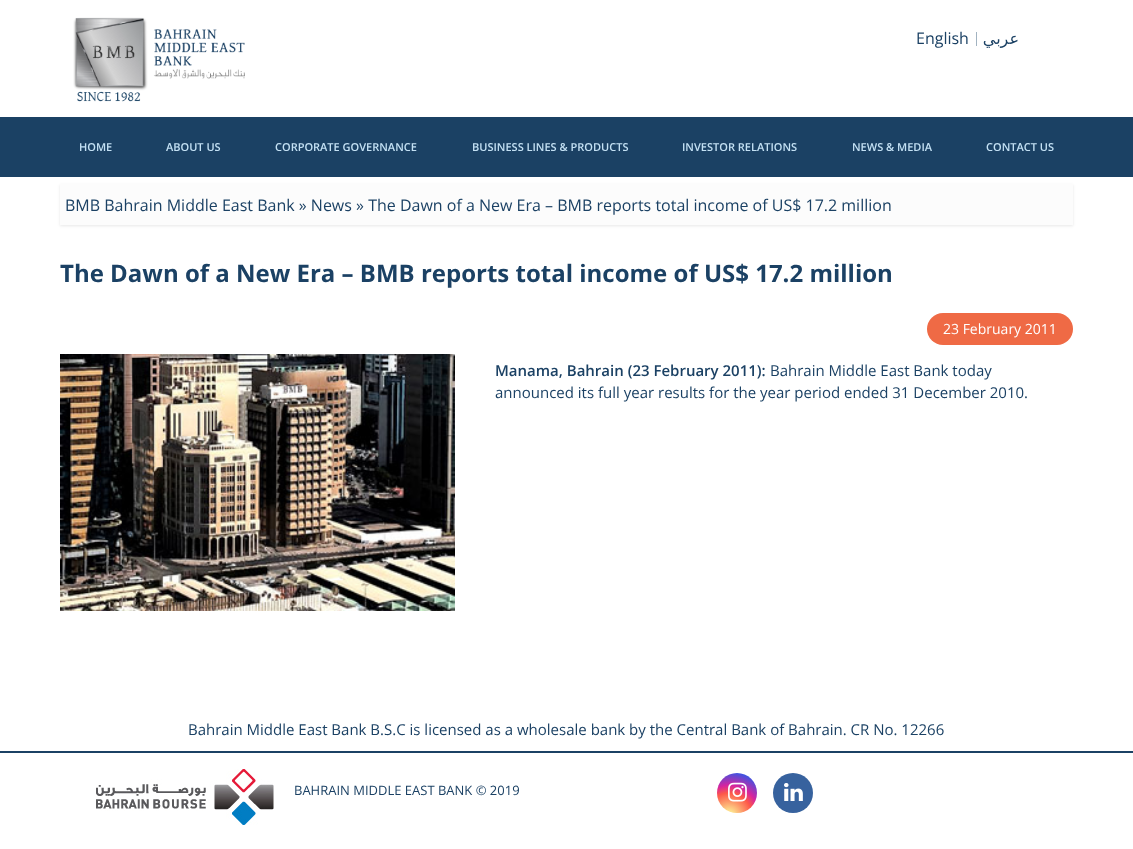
<svg xmlns="http://www.w3.org/2000/svg" width="1133" height="849" viewBox="0 0 1133 849">
  <style>
    .t1 { font: 16px Open Sans; fill: #1b4164; }
    .t2 { font: 16px DejaVu Sans; direction: rtl; fill: #1b4164; }
    .t3 { font: 600 11px Open Sans; fill: #c4e1f4; }
    .t4 { font: 14px Open Sans; fill: #fff; }
    .t5 { font: 600 15px Open Sans; fill: #1b4164; }
    .t6 { font: 15px Open Sans; fill: #1b4164; }
    .t7 { font: bold 24px Open Sans; fill: #1b4164; }
    .t8 { font: 13px Open Sans; fill: #1b4164; }
  </style>
  <defs>
    <radialGradient id="g1" gradientUnits="userSpaceOnUse" cx="729" cy="816" r="51"><stop offset="0" stop-color="#fdf497"/><stop offset="0.05" stop-color="#fdf497"/><stop offset="0.45" stop-color="#fd5949"/><stop offset="0.6" stop-color="#d6249f"/><stop offset="0.9" stop-color="#285aeb"/></radialGradient>
  </defs>
  <rect width="100%" height="100%" fill="#fff"/>
  <image x="73" y="17" width="172" height="85" href="images/1.png"/>
  <text x="916" y="44" class="t1">English</text>
  <rect x="976" y="32" width="1" height="14" fill="#a2b3c1"/>
  <text x="1019" y="44" class="t2">عربي</text>
  <rect x="0" y="117" width="1133" height="60" fill="#1b4164"/>
  <text x="79" y="151" class="t3">HOME</text>
  <text x="166" y="151" class="t3">ABOUT US</text>
  <text x="275" y="151" class="t3">CORPORATE GOVERNANCE</text>
  <text x="472" y="151" class="t3">BUSINESS LINES &amp; PRODUCTS</text>
  <text x="682" y="151" class="t3">INVESTOR RELATIONS</text>
  <text x="852" y="151" class="t3">NEWS &amp; MEDIA</text>
  <text x="986" y="151" class="t3">CONTACT US</text>
  <rect x="60" y="185" width="1013" height="41" fill="#00000017" filter="blur(1.5px)"/>
  <rect x="60" y="184" width="1013" height="41" fill="#fcfcfc"/>
  <text x="65" y="211" class="t1">BMB Bahrain Middle East Bank » News » The Dawn of a New Era – BMB reports total income of US$ 17.2 million</text>
  <rect x="927" y="313" width="146" height="32" rx="16" fill="#ef6a45"/>
  <text x="943" y="334" class="t4">23 February 2011</text>
  <image x="60" y="354" width="395" height="257" href="images/2.png"/>
  <text x="495" y="376" class="t5">Manama, Bahrain (23 February 2011):</text>
  <text x="770" y="376" class="t6">Bahrain Middle East Bank today</text>
  <text x="495" y="398" class="t6">announced its full year results for the year period ended 31 December 2010.</text>
  <text x="60" y="282" class="t7">The Dawn of a New Era – BMB reports total income of US$ 17.2 million</text>
  <text x="188" y="735" class="t6">Bahrain Middle East Bank B.S.C is licensed as a wholesale bank by the Central Bank of Bahrain. CR No. 12266</text>
  <rect x="0" y="751" width="1133" height="2" fill="#1b4164"/>
  <image x="96" y="769" width="178" height="56" href="images/3.png"/>
  <text x="294" y="795" class="t8">BAHRAIN MIDDLE EAST BANK © 2019</text>
  <circle cx="737" cy="793" r="20" fill="url(#g1)"/>
  <image x="728" y="782" width="19" height="20" href="images/4.png"/>
  <circle cx="793" cy="793" r="20" fill="#37629e"/>
  <image x="784" y="783" width="19" height="18" href="images/5.png"/>
</svg>
